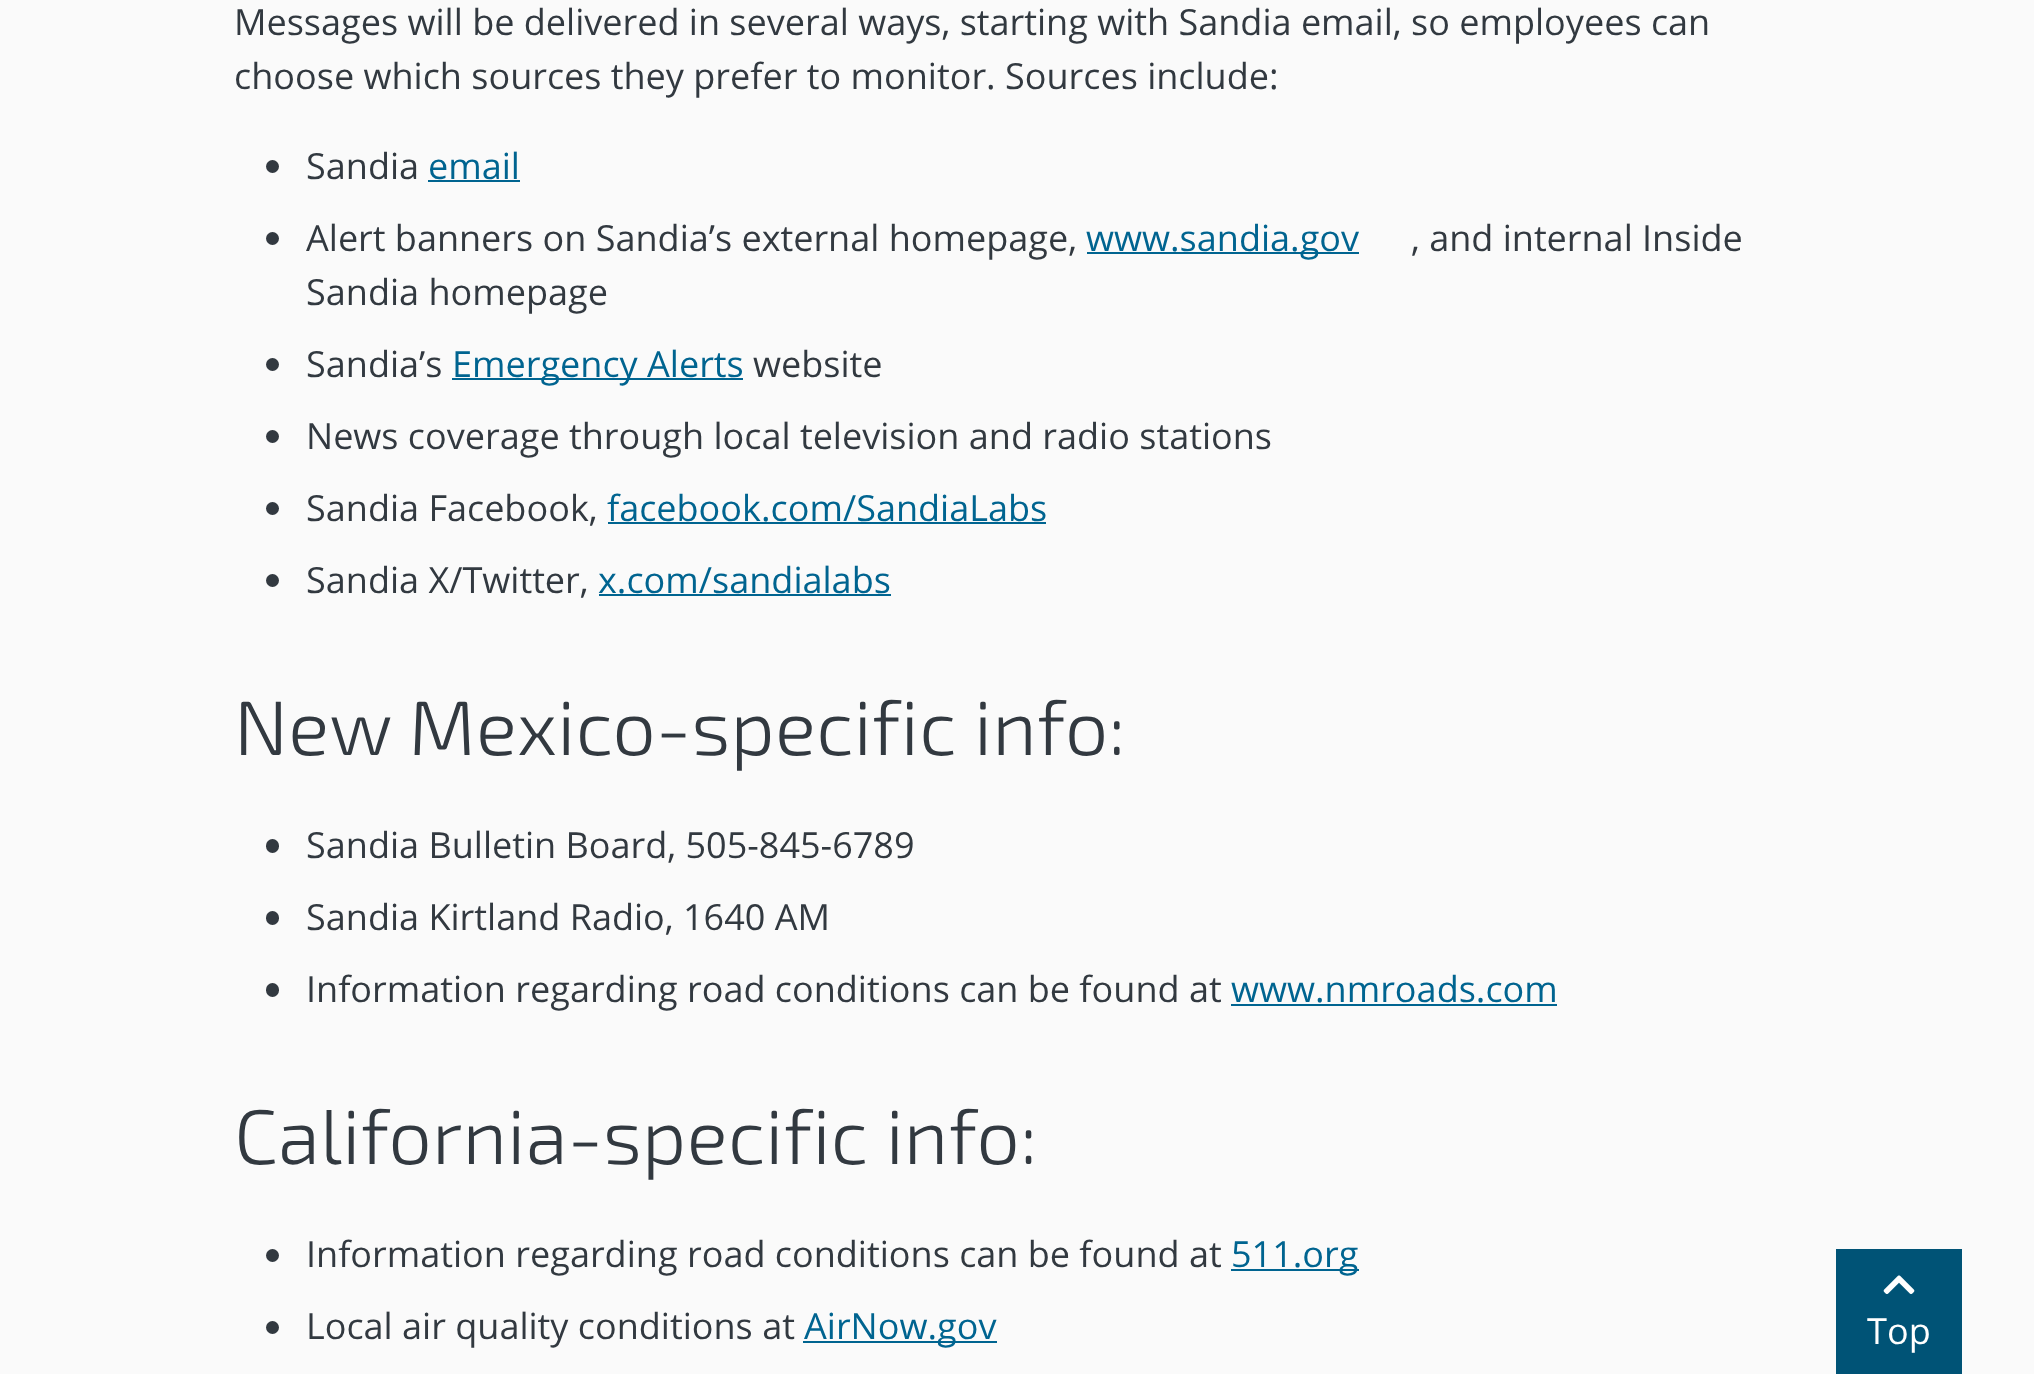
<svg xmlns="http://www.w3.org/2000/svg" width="2034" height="1374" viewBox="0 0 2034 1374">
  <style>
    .t1 { font: 36px Open Sans; fill: #323940; }
    .t2 { font: 36px Open Sans; fill: #006490; }
    .t3 { font: 300 77.25px 'Exo 2'; fill: #323940; }
    .t4 { font: 36px Open Sans; fill: #fff; }
  </style>
  <rect width="100%" height="100%" fill="#fafafa"/>
  <text x="234" y="35" class="t1">Messages will be delivered in several ways, starting with Sandia email, so employees can</text>
  <text x="234" y="89" class="t1">choose which sources they prefer to monitor. Sources include:</text>
  <circle cx="272.5" cy="166.5" r="6.5" fill="#323940"/>
  <text x="306" y="179" class="t1">Sandia</text>
  <text x="428" y="179" class="t2">email</text>
  <rect x="428" y="180" width="92" height="2" fill="#006490"/>
  <circle cx="272.5" cy="238.5" r="6.5" fill="#323940"/>
  <text x="306" y="251" class="t1">Alert banners on Sandia’s external homepage,</text>
  <rect x="1087" y="252" width="272" height="2" fill="#006490"/>
  <text x="1086" y="251" class="t2">www.sandia.gov</text>
  <text x="1411" y="251" class="t1">, and internal Inside</text>
  <text x="306" y="305" class="t1">Sandia homepage</text>
  <circle cx="272.5" cy="364.5" r="6.5" fill="#323940"/>
  <text x="306" y="377" class="t1">Sandia’s</text>
  <rect x="452" y="378" width="291" height="2" fill="#006490"/>
  <text x="452" y="377" class="t2">Emergency Alerts</text>
  <text x="753" y="377" class="t1">website</text>
  <circle cx="272.5" cy="436.5" r="6.5" fill="#323940"/>
  <text x="306" y="449" class="t1">News coverage through local television and radio stations</text>
  <circle cx="272.5" cy="508.5" r="6.5" fill="#323940"/>
  <text x="306" y="521" class="t1">Sandia Facebook,</text>
  <text x="607" y="521" class="t2">facebook.com/SandiaLabs</text>
  <rect x="608" y="522" width="438" height="2" fill="#006490"/>
  <circle cx="272.5" cy="580.5" r="6.5" fill="#323940"/>
  <text x="306" y="593" class="t1">Sandia X/Twitter,</text>
  <text x="598" y="593" class="t2">x.com/sandialabs</text>
  <rect x="599" y="594" width="292" height="2" fill="#006490"/>
  <text x="234" y="755" class="t3">New Mexico-specific info:</text>
  <rect x="266" y="839" width="13" height="14" rx="6.5" fill="#323940"/>
  <text x="306" y="858" class="t1">Sandia Bulletin Board, 505-845-6789</text>
  <rect x="266" y="911" width="13" height="14" rx="6.5" fill="#323940"/>
  <text x="306" y="930" class="t1">Sandia Kirtland Radio, 1640 AM</text>
  <rect x="266" y="983" width="13" height="14" rx="6.5" fill="#323940"/>
  <text x="306" y="1002" class="t1">Information regarding road conditions can be found at</text>
  <text x="1231" y="1002" class="t2">www.nmroads.com</text>
  <rect x="1231" y="1004" width="326" height="2" fill="#006490"/>
  <text x="234" y="1164" class="t3">California-specific info:</text>
  <circle cx="272.5" cy="1255.5" r="6.5" fill="#323940"/>
  <text x="306" y="1267" class="t1">Information regarding road conditions can be found at</text>
  <rect x="1231" y="1269" width="128" height="2" fill="#006490"/>
  <text x="1231" y="1267" class="t2">511.org</text>
  <circle cx="272.5" cy="1327.5" r="6.5" fill="#323940"/>
  <text x="306" y="1339" class="t1">Local air quality conditions at</text>
  <rect x="803" y="1341" width="194" height="2" fill="#006490"/>
  <text x="804" y="1339" class="t2">AirNow.gov</text>
  <rect x="1836" y="1249" width="126" height="125" fill="#005376"/>
  <image x="1883" y="1275" width="32" height="19" href="images/1.png"/>
  <text x="1867" y="1344" class="t4">Top</text>
</svg>
